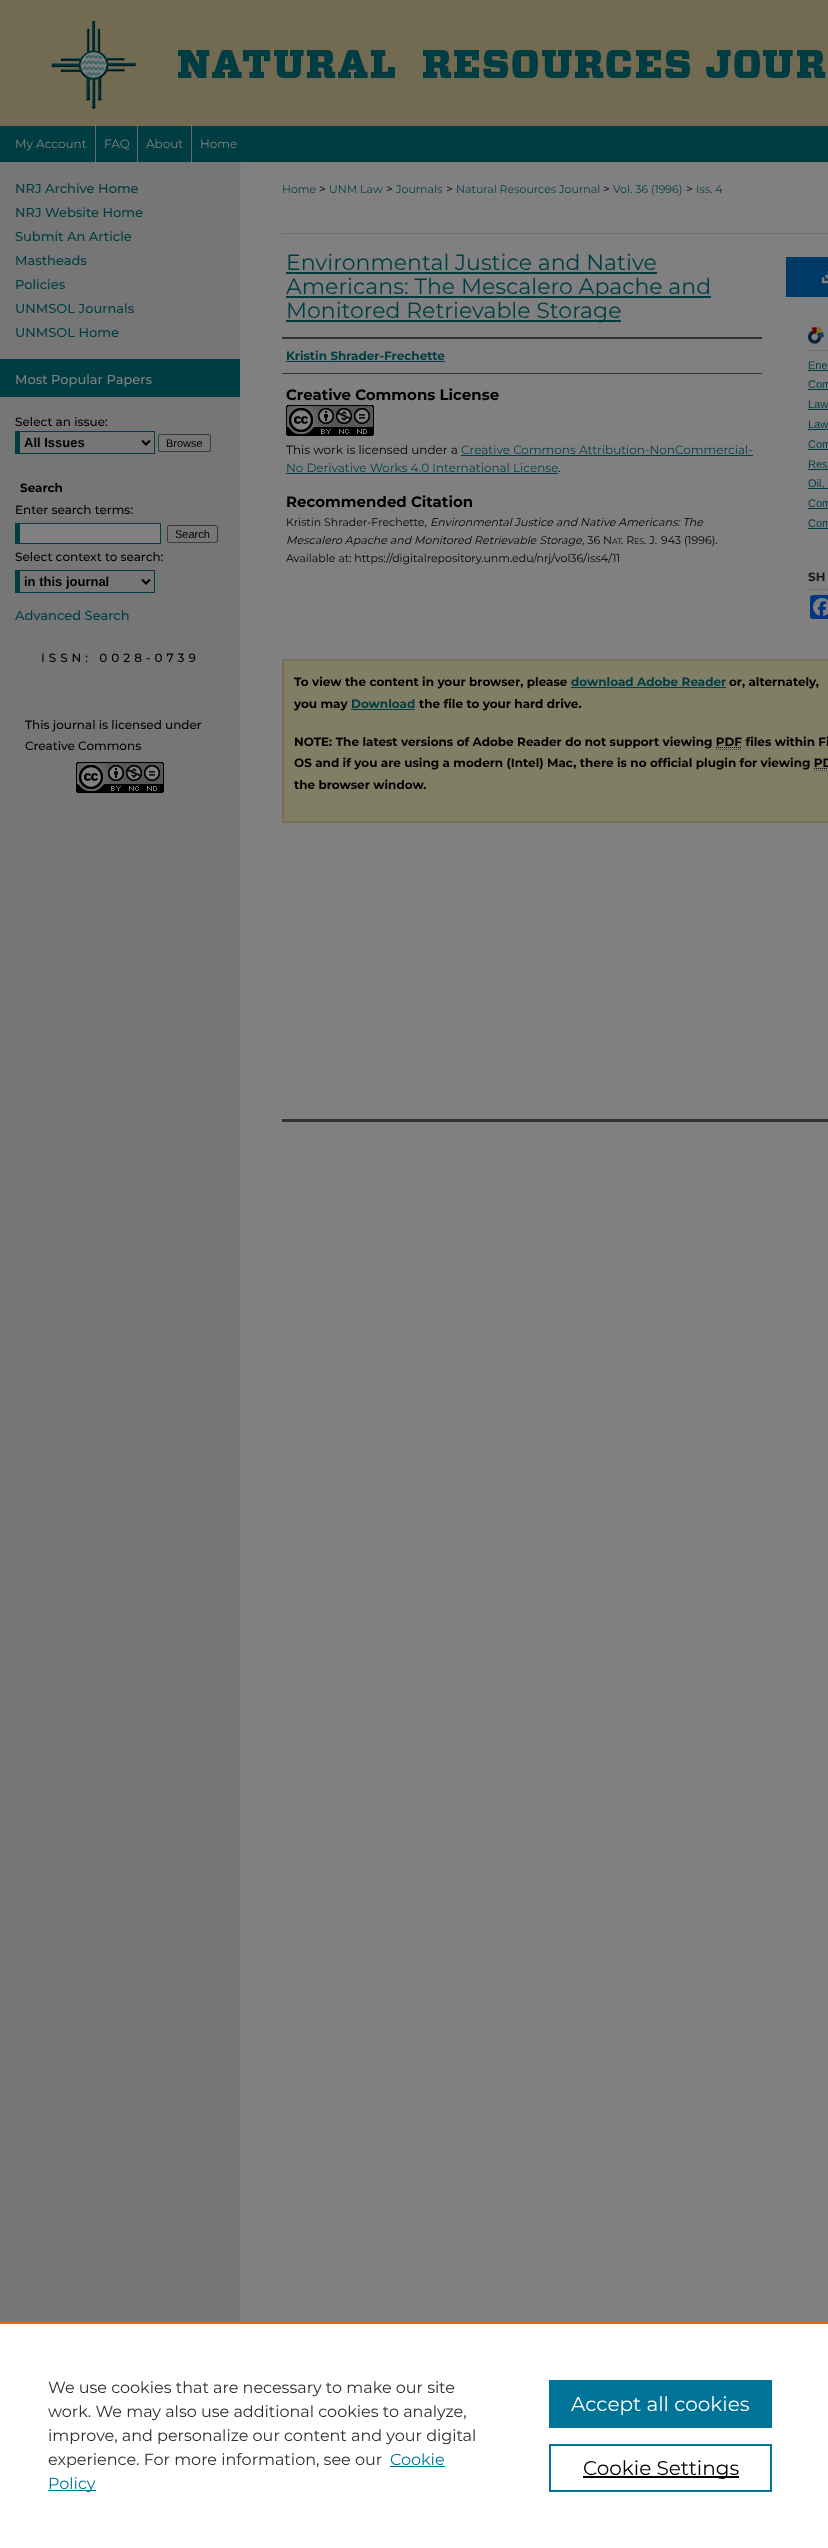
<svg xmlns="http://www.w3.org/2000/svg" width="828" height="2548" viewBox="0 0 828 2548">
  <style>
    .t1 { font: 12px Montserrat; fill: #808080; }
    .t2 { font: 500 13px Montserrat; fill: #003d43; }
    .t3 { font: 500 13px Montserrat; fill: #808080; }
    .t4 { font: 500 12px Montserrat; fill: #000; }
    .t5 { font: bold 13px Liberation Sans; fill: #000; }
    .t6 { font: 11px Liberation Sans; fill: #000; }
    .t7 { font: bold 12px Montserrat; fill: #000; }
    .t8 { font: 500 12px Montserrat; letter-spacing: 4px; fill: #000; }
    .t9 { font: 11px Montserrat; fill: #003d43; }
    .t10 { font: 12px Montserrat; fill: #000; }
    .t11 { font: 22px Montserrat; fill: #003d43; }
    .t12 { font: bold 12px Montserrat; fill: #003d43; }
    .t13 { font: bold 15px Montserrat; fill: #000; }
    .t14 { font: 12px Montserrat; fill: #003d43; }
    .t15 { font: 11px Montserrat; fill: #000; }
    .t16 { font: italic 11px Montserrat; fill: #000; }
    .t17 { font: 8px Montserrat; fill: #000; }
    .t18 { font: 11px Liberation Sans; fill: #003d43; }
    .t19 { font: bold 12px Montserrat; fill: #1a1a1a; }
    .t20 { font: 16px Montserrat; fill: #2e2e2e; }
    .t21 { font: 16px Montserrat; fill: #007398; }
    .t22 { font: 20px Montserrat; fill: #fff; }
    .t23 { font: 20px Montserrat; fill: #000; }
  </style>
  <rect width="100%" height="100%" fill="#fff"/>
  <rect x="0" y="109" width="828" height="17" fill="#736a53"/>
  <image x="0" y="0" width="828" height="109" href="images/1.png"/>
  <rect x="0" y="126" width="828" height="36" fill="#003d43"/>
  <rect x="95" y="126" width="1" height="36" fill="#646b6b"/>
  <text x="15" y="148" class="t1">My Account</text>
  <rect x="137" y="126" width="1" height="36" fill="#646b6b"/>
  <text x="104" y="148" class="t1">FAQ</text>
  <rect x="191" y="126" width="1" height="36" fill="#646b6b"/>
  <text x="146" y="148" class="t1">About</text>
  <text x="200" y="148" class="t1">Home</text>
  <image x="0" y="162" width="828" height="2160" href="images/2.png"/>
  <text x="15" y="193" class="t2">NRJ Archive Home</text>
  <text x="15" y="217" class="t2">NRJ Website Home</text>
  <text x="15" y="241" class="t2">Submit An Article</text>
  <text x="15" y="265" class="t2">Mastheads</text>
  <text x="15" y="289" class="t2">Policies</text>
  <text x="15" y="313" class="t2">UNMSOL Journals</text>
  <text x="15" y="337" class="t2">UNMSOL Home</text>
  <rect x="0" y="359" width="240" height="38" fill="#003d43"/>
  <text x="15" y="384" class="t3">Most Popular Papers</text>
  <text x="15" y="426" class="t4">Select an issue:</text>
  <rect x="15" y="431" width="140" height="1" fill="#003d43"/>
  <rect x="154" y="431" width="1" height="23" fill="#003d43"/>
  <rect x="15" y="453" width="140" height="1" fill="#003d43"/>
  <rect x="15" y="431" width="5" height="23" fill="#003d43"/>
  <path d="M142 440.5L146 444.5L150 440.5" fill="none" stroke="#000" stroke-width="2"/>
  <text x="24" y="447" class="t5">All Issues</text>
  <rect x="158.5" y="434.5" width="52" height="17" rx="1.5" fill="none" stroke="#3b3b3b"/>
  <text x="166" y="447" class="t6">Browse</text>
  <text x="20" y="492" class="t7">Search</text>
  <text x="15" y="514" class="t4">Enter search terms:</text>
  <rect x="20" y="524" width="140" height="19" fill="#808080"/>
  <rect x="15" y="523" width="146" height="1" fill="#003d43"/>
  <rect x="160" y="523" width="1" height="21" fill="#003d43"/>
  <rect x="15" y="543" width="146" height="1" fill="#003d43"/>
  <rect x="15" y="523" width="5" height="21" fill="#003d43"/>
  <rect x="167.5" y="525.5" width="50" height="17" rx="1.5" fill="none" stroke="#3b3b3b"/>
  <text x="175" y="538" class="t6">Search</text>
  <text x="15" y="561" class="t4">Select context to search:</text>
  <rect x="15" y="570" width="140" height="1" fill="#003d43"/>
  <rect x="154" y="570" width="1" height="23" fill="#003d43"/>
  <rect x="15" y="592" width="140" height="1" fill="#003d43"/>
  <rect x="15" y="570" width="5" height="23" fill="#003d43"/>
  <path d="M142 579.5L146 583.5L150 579.5" fill="none" stroke="#000" stroke-width="2"/>
  <text x="24" y="586" class="t5">in this journal</text>
  <text x="15" y="620" class="t2">Advanced Search</text>
  <text x="41" y="662" class="t8">ISSN: 0028-0739</text>
  <text x="25" y="729" class="t4">This journal is licensed under</text>
  <text x="25" y="750" class="t4">Creative Commons</text>
  <image x="76" y="762" width="88" height="31" href="images/3.png"/>
  <text x="282" y="193" class="t9">Home</text>
  <text x="319" y="193" class="t10">&gt;</text>
  <text x="329" y="193" class="t9">UNM Law</text>
  <text x="386" y="193" class="t10">&gt;</text>
  <text x="396" y="193" class="t9">Journals</text>
  <text x="446" y="193" class="t10">&gt;</text>
  <text x="456" y="193" class="t9">Natural Resources Journal</text>
  <text x="603" y="193" class="t10">&gt;</text>
  <text x="613" y="193" class="t9">Vol. 36 (1996)</text>
  <text x="686" y="193" class="t10">&gt;</text>
  <text x="696" y="193" class="t9">Iss. 4</text>
  <rect x="282" y="233" width="546" height="1" fill="#6f6f6f"/>
  <text x="286" y="270" class="t11">Environmental Justice and Native</text>
  <rect x="286" y="272" width="371" height="2" fill="#003d43"/>
  <rect x="286" y="296" width="425" height="2" fill="#003d43"/>
  <text x="286" y="294" class="t11">Americans: The Mescalero Apache and</text>
  <rect x="286" y="320" width="335" height="2" fill="#003d43"/>
  <text x="286" y="318" class="t11">Monitored Retrievable Storage</text>
  <rect x="282" y="337" width="480" height="2" fill="#333"/>
  <rect x="282" y="373" width="480" height="1" fill="#333"/>
  <text x="286" y="360" class="t12">Kristin Shrader-Frechette</text>
  <rect x="286" y="361" width="159" height="1" fill="#003d43"/>
  <text x="286" y="400" class="t13">Creative Commons License</text>
  <image x="286" y="405" width="88" height="31" href="images/4.png"/>
  <text x="286" y="454" class="t10">This work is licensed under a</text>
  <text x="461" y="454" class="t14">Creative Commons Attribution-NonCommercial-</text>
  <rect x="461" y="455" width="292" height="1" fill="#003d43"/>
  <text x="286" y="472" class="t14">No Derivative Works 4.0 International License</text>
  <rect x="286" y="473" width="272" height="1" fill="#003d43"/>
  <text x="558" y="472" class="t10">.</text>
  <text x="286" y="507" class="t13">Recommended Citation</text>
  <text x="286" y="526" class="t15">Kristin Shrader-Frechette,</text>
  <text x="430" y="526" class="t16">Environmental Justice and Native Americans: The</text>
  <text x="286" y="544" class="t16">Mescalero Apache and Monitored Retrievable Storage</text>
  <text x="582" y="544" class="t15">, 36 N</text>
  <text x="612" y="544" class="t17">AT</text>
  <text x="621" y="544" class="t15">. R</text>
  <text x="634" y="544" class="t17">ES</text>
  <text x="644" y="544" class="t15">. J.</text>
  <text x="661" y="544" class="t15">943 (1996).</text>
  <text x="286" y="562" class="t15">Available at: https://digitalrepository.unm.edu/nrj/vol36/iss4/11</text>
  <rect x="786" y="257" width="42" height="40" fill="#003a66"/>
  <image x="822" y="270" width="6" height="14" href="images/5.png"/>
  <image x="808" y="327" width="16" height="17" href="images/6.png"/>
  <rect x="808" y="350" width="20" height="1" fill="#6f6f6f"/>
  <text x="808" y="369" class="t18">Ene</text>
  <rect x="808" y="370" width="20" height="1" fill="#003d43"/>
  <text x="808" y="388" class="t18">Com</text>
  <rect x="808" y="389" width="20" height="1" fill="#003d43"/>
  <text x="808" y="408" class="t18">Law</text>
  <rect x="808" y="409" width="20" height="1" fill="#003d43"/>
  <text x="808" y="428" class="t18">Law</text>
  <rect x="808" y="429" width="20" height="1" fill="#003d43"/>
  <text x="808" y="448" class="t18">Com</text>
  <rect x="808" y="449" width="20" height="1" fill="#003d43"/>
  <text x="808" y="468" class="t18">Res</text>
  <rect x="808" y="469" width="20" height="1" fill="#003d43"/>
  <rect x="808" y="488" width="20" height="1" fill="#003d43"/>
  <text x="808" y="487" class="t18">Oil,</text>
  <text x="808" y="507" class="t18">Com</text>
  <rect x="808" y="508" width="20" height="1" fill="#003d43"/>
  <text x="808" y="527" class="t18">Com</text>
  <rect x="808" y="528" width="20" height="1" fill="#003d43"/>
  <rect x="808" y="589" width="20" height="1" fill="#6f6f6f"/>
  <text x="808" y="581" class="t19">SH</text>
  <rect x="810" y="595" width="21" height="24" rx="3" fill="#043380"/>
  <image x="813" y="598" width="15" height="18" href="images/7.png"/>
  <rect x="282" y="1119" width="546" height="3" fill="#333"/>
  <rect x="283" y="660" width="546" height="162" fill="#807e65" stroke="#786e51" stroke-width="2"/>
  <text x="294" y="686" class="t7">To view the content in your browser, please</text>
  <text x="571" y="686" class="t12">download Adobe Reader</text>
  <rect x="571" y="687" width="155" height="1" fill="#003d43"/>
  <text x="729" y="686" class="t7">or, alternately,</text>
  <text x="294" y="708" class="t7">you may</text>
  <text x="351" y="708" class="t12">Download</text>
  <rect x="351" y="709" width="64" height="1" fill="#003d43"/>
  <text x="419" y="708" class="t7">the file to your hard drive.</text>
  <text x="294" y="746" class="t7">NOTE: The latest versions of Adobe Reader do not support viewing PDF files within Fi</text>
  <path d="M716 747.5H742" fill="none" stroke="#000" stroke-dasharray="1 1"/>
  <path d="M716 749.5H742" fill="none" stroke="#4d4d4d" stroke-dasharray="1 1"/>
  <text x="294" y="767" class="t7">OS and if you are using a modern (Intel) Mac, there is no official plugin for viewing PD</text>
  <path d="M814 768.5H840" fill="none" stroke="#000" stroke-dasharray="1 1"/>
  <path d="M814 770.5H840" fill="none" stroke="#4d4d4d" stroke-dasharray="1 1"/>
  <text x="294" y="789" class="t7">the browser window.</text>
  <rect x="0" y="2322" width="828" height="2" fill="#eb6500"/>
  <text x="48" y="2393" class="t20">We use cookies that are necessary to make our site</text>
  <text x="48" y="2417" class="t20">work. We may also use additional cookies to analyze,</text>
  <text x="48" y="2441" class="t20">improve, and personalize our content and your digital</text>
  <text x="48" y="2465" class="t20">experience. For more information, see our</text>
  <text x="390" y="2465" class="t21">Cookie</text>
  <rect x="390" y="2466" width="55" height="1" fill="#007398"/>
  <rect x="48" y="2490" width="48" height="1" fill="#007398"/>
  <text x="48" y="2489" class="t21">Policy</text>
  <rect x="549" y="2380" width="223" height="48" fill="#007398"/>
  <text x="571" y="2411" class="t22">Accept all cookies</text>
  <rect x="550" y="2445" width="221" height="46" fill="none" stroke="#007398" stroke-width="2"/>
  <rect x="583" y="2476" width="156" height="2" fill="#000"/>
  <text x="583" y="2475" class="t23">Cookie Settings</text>
</svg>
